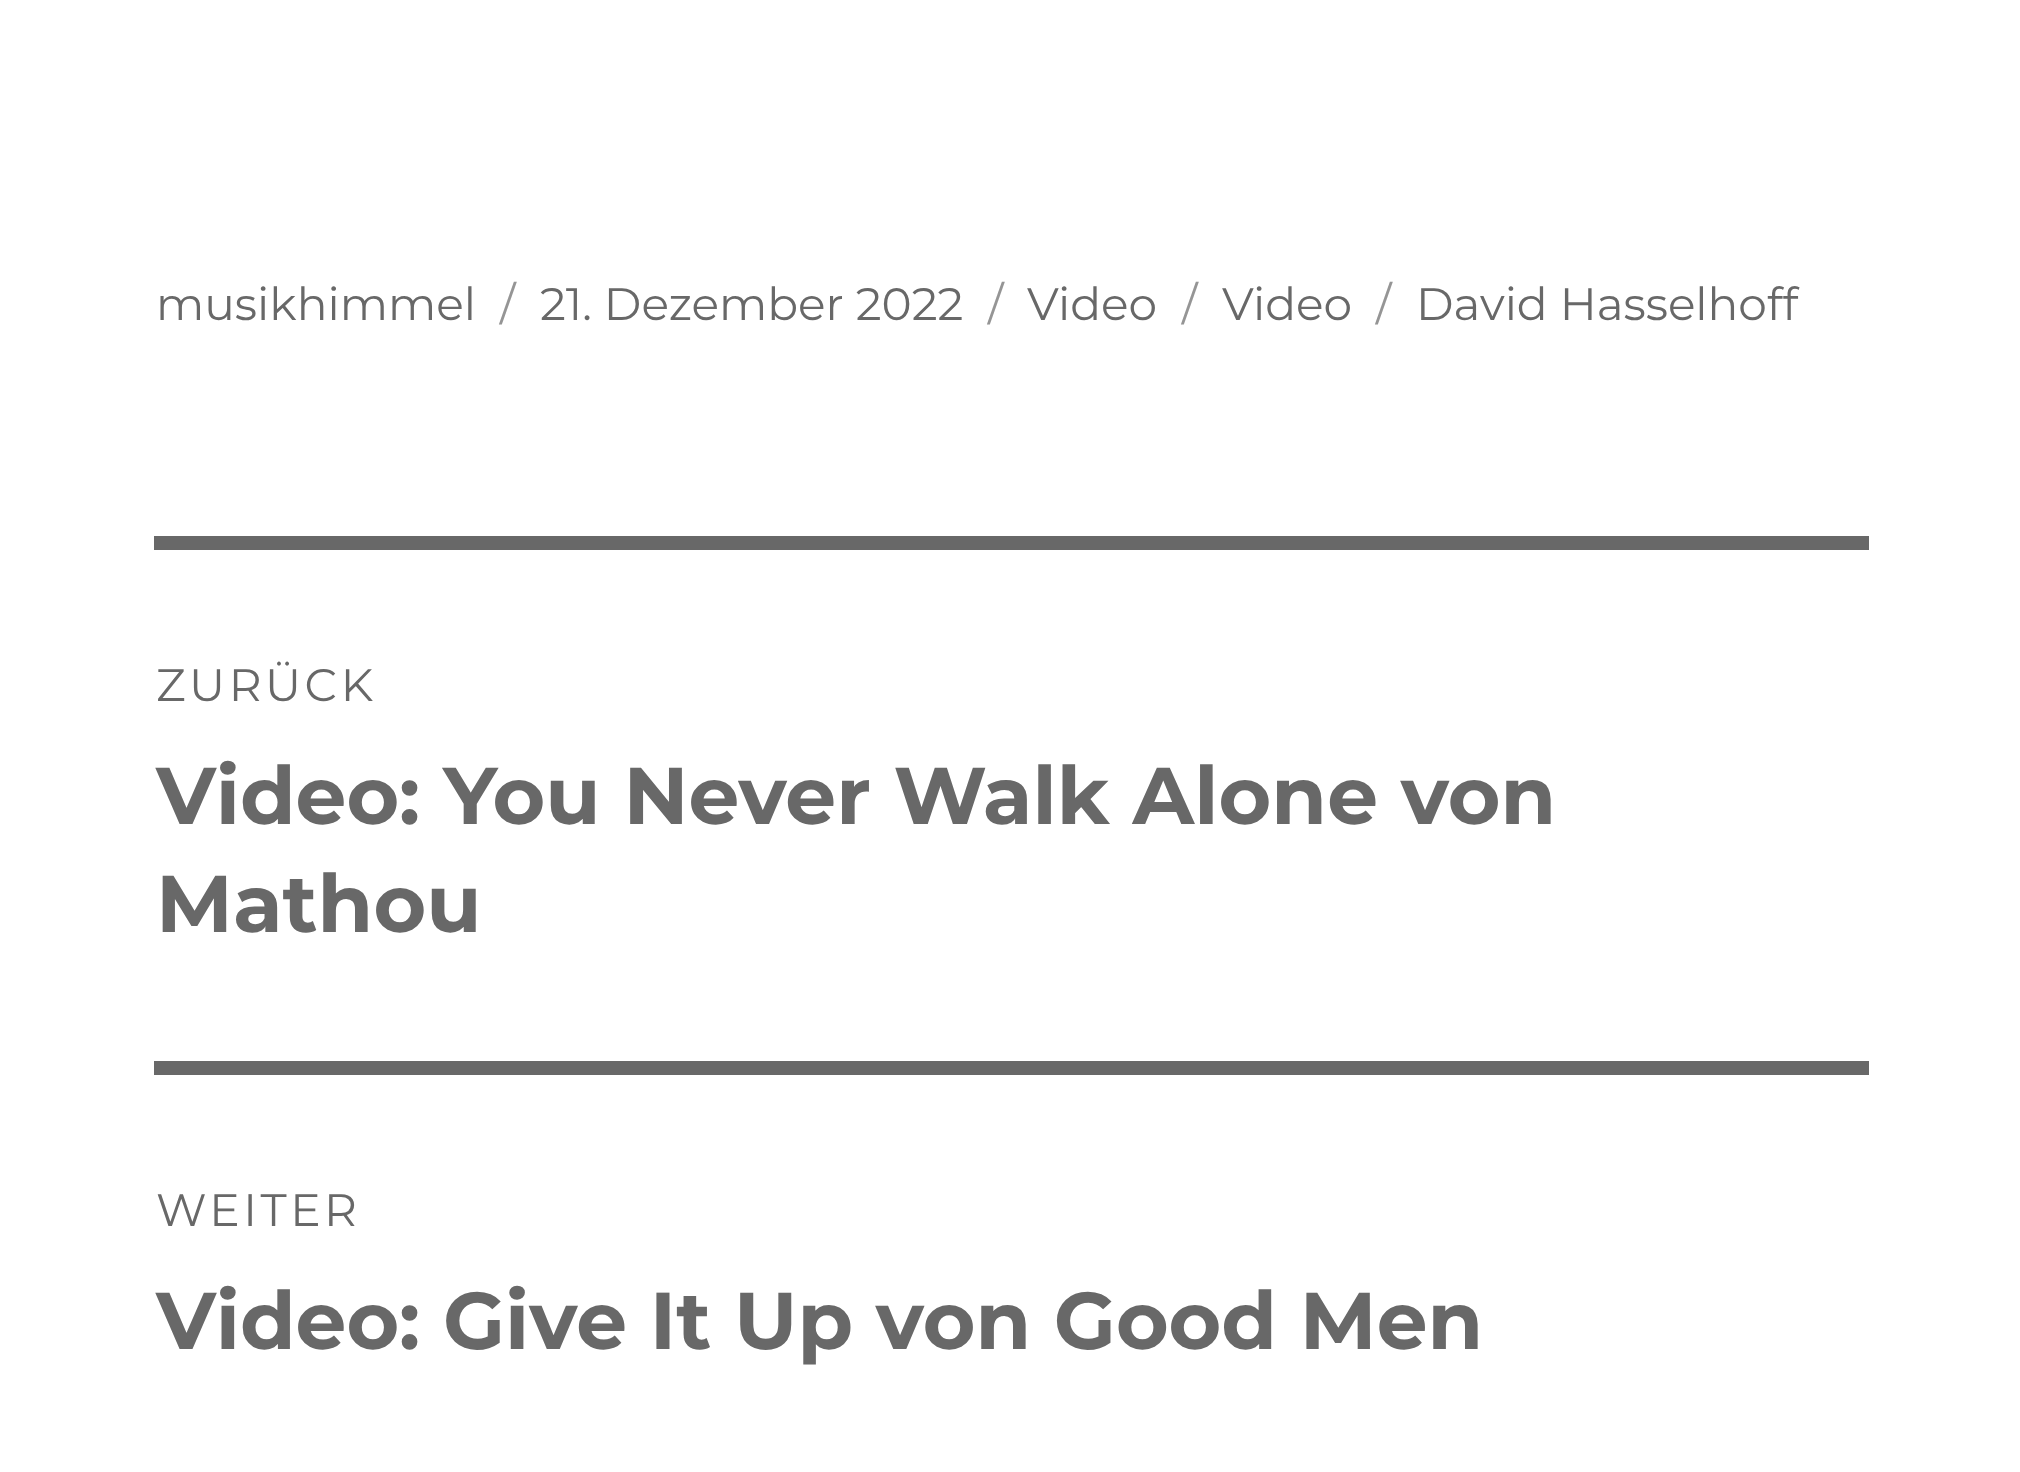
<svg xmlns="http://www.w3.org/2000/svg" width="2020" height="1472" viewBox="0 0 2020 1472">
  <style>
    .t1 { font: 100 45.5px Montserrat; fill: #686868; }
    .t2 { font: 100 45.5px Montserrat; fill: #959595; }
    .t3 { font: 100 45.5px Montserrat; letter-spacing: 3.5px; fill: #686868; }
    .t4 { font: 100 80.5px 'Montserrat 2'; fill: #686868; }
  </style>
  <rect width="100%" height="100%" fill="#fff"/>
  <text x="156" y="320" class="t1">musikhimmel</text>
  <text x="500" y="320" class="t2">/</text>
  <text x="540" y="320" class="t1">21. Dezember 2022</text>
  <text x="988" y="320" class="t2">/</text>
  <text x="1027" y="320" class="t1">Video</text>
  <text x="1182" y="320" class="t2">/</text>
  <text x="1222" y="320" class="t1">Video</text>
  <text x="1376" y="320" class="t2">/</text>
  <text x="1416" y="320" class="t1">David Hasselhoff</text>
  <rect x="154" y="536" width="1715" height="14" fill="#686868"/>
  <text x="156" y="701" class="t3">ZURÜCK</text>
  <text x="156" y="824" class="t4">Video: You Never Walk Alone von</text>
  <text x="156" y="932" class="t4">Mathou</text>
  <rect x="154" y="1061" width="1715" height="14" fill="#686868"/>
  <text x="156" y="1226" class="t3">WEITER</text>
  <text x="156" y="1349" class="t4">Video: Give It Up von Good Men</text>
</svg>
